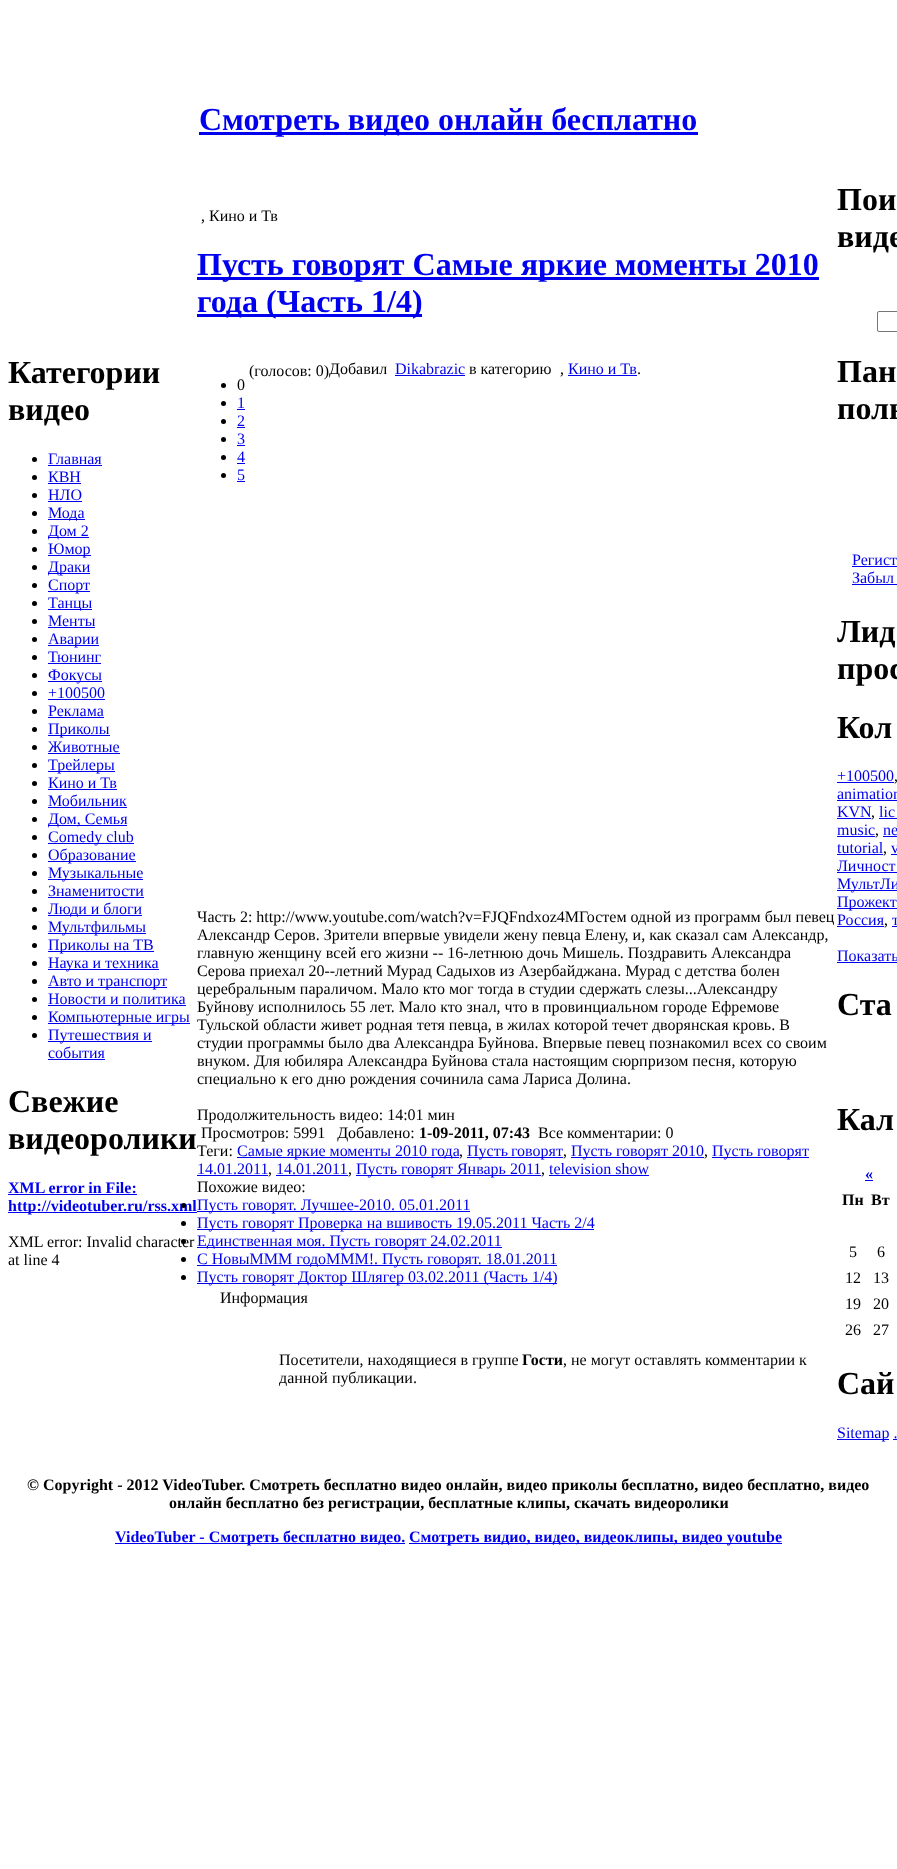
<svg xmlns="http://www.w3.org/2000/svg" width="897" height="1869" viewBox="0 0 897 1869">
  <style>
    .t1 { font: bold 32px Liberation Serif; fill: #00e; }
    .t2 { font: bold 32px Liberation Serif; fill: #000; }
    .t3 { font: 16px Liberation Serif; fill: #00e; }
    .t4 { font: bold 16px Liberation Serif; fill: #00e; }
    .t5 { font: 16px Liberation Serif; fill: #000; }
    .t6 { font: bold 16px Liberation Serif; fill: #000; }
  </style>
  <rect width="100%" height="100%" fill="#fff"/>
  <rect x="199" y="132" width="499" height="3" fill="#00e"/>
  <text x="199" y="130" class="t1">Смотреть видео онлайн бесплатно</text>
  <text x="8" y="383" class="t2">Категории</text>
  <text x="8" y="420" class="t2">видео</text>
  <circle cx="34.5" cy="459.5" r="2.5" fill="#000"/>
  <text x="48" y="464" class="t3">Главная</text>
  <rect x="48" y="465" width="54" height="1" fill="#00e"/>
  <circle cx="34.5" cy="477.5" r="2.5" fill="#000"/>
  <text x="48" y="482" class="t3">КВН</text>
  <rect x="48" y="483" width="33" height="1" fill="#00e"/>
  <circle cx="34.5" cy="495.5" r="2.5" fill="#000"/>
  <text x="48" y="500" class="t3">НЛО</text>
  <rect x="48" y="501" width="34" height="1" fill="#00e"/>
  <circle cx="34.5" cy="513.5" r="2.5" fill="#000"/>
  <rect x="48" y="519" width="37" height="1" fill="#00e"/>
  <text x="48" y="518" class="t3">Мода</text>
  <circle cx="34.5" cy="531.5" r="2.5" fill="#000"/>
  <rect x="48" y="537" width="41" height="1" fill="#00e"/>
  <text x="48" y="536" class="t3">Дом 2</text>
  <circle cx="34.5" cy="549.5" r="2.5" fill="#000"/>
  <rect x="48" y="555" width="43" height="1" fill="#00e"/>
  <text x="48" y="554" class="t3">Юмор</text>
  <circle cx="34.5" cy="567.5" r="2.5" fill="#000"/>
  <rect x="48" y="573" width="42" height="1" fill="#00e"/>
  <text x="48" y="572" class="t3">Драки</text>
  <circle cx="34.5" cy="585.5" r="2.5" fill="#000"/>
  <rect x="48" y="591" width="42" height="1" fill="#00e"/>
  <text x="48" y="590" class="t3">Спорт</text>
  <circle cx="34.5" cy="603.5" r="2.5" fill="#000"/>
  <rect x="48" y="609" width="44" height="1" fill="#00e"/>
  <text x="48" y="608" class="t3">Танцы</text>
  <circle cx="34.5" cy="621.5" r="2.5" fill="#000"/>
  <text x="48" y="626" class="t3">Менты</text>
  <rect x="48" y="627" width="47" height="1" fill="#00e"/>
  <circle cx="34.5" cy="639.5" r="2.5" fill="#000"/>
  <rect x="48" y="645" width="51" height="1" fill="#00e"/>
  <text x="48" y="644" class="t3">Аварии</text>
  <circle cx="34.5" cy="657.5" r="2.5" fill="#000"/>
  <text x="48" y="662" class="t3">Тюнинг</text>
  <rect x="48" y="663" width="53" height="1" fill="#00e"/>
  <circle cx="34.5" cy="675.5" r="2.5" fill="#000"/>
  <rect x="48" y="681" width="54" height="1" fill="#00e"/>
  <text x="48" y="680" class="t3">Фокусы</text>
  <circle cx="34.5" cy="693.5" r="2.5" fill="#000"/>
  <text x="48" y="698" class="t3">+100500</text>
  <rect x="48" y="699" width="57" height="1" fill="#00e"/>
  <circle cx="34.5" cy="711.5" r="2.5" fill="#000"/>
  <text x="48" y="716" class="t3">Реклама</text>
  <rect x="48" y="717" width="56" height="1" fill="#00e"/>
  <circle cx="34.5" cy="729.5" r="2.5" fill="#000"/>
  <rect x="48" y="735" width="62" height="1" fill="#00e"/>
  <text x="48" y="734" class="t3">Приколы</text>
  <circle cx="34.5" cy="747.5" r="2.5" fill="#000"/>
  <text x="48" y="752" class="t3">Животные</text>
  <rect x="48" y="753" width="72" height="1" fill="#00e"/>
  <circle cx="34.5" cy="765.5" r="2.5" fill="#000"/>
  <rect x="48" y="771" width="67" height="1" fill="#00e"/>
  <text x="48" y="770" class="t3">Трейлеры</text>
  <circle cx="34.5" cy="783.5" r="2.5" fill="#000"/>
  <text x="48" y="788" class="t3">Кино и Тв</text>
  <rect x="48" y="789" width="69" height="1" fill="#00e"/>
  <circle cx="34.5" cy="801.5" r="2.5" fill="#000"/>
  <text x="48" y="806" class="t3">Мобильник</text>
  <rect x="48" y="807" width="79" height="1" fill="#00e"/>
  <circle cx="34.5" cy="819.5" r="2.5" fill="#000"/>
  <rect x="48" y="825" width="79" height="1" fill="#00e"/>
  <text x="48" y="824" class="t3">Дом, Семья</text>
  <circle cx="34.5" cy="837.5" r="2.5" fill="#000"/>
  <rect x="48" y="843" width="86" height="1" fill="#00e"/>
  <text x="48" y="842" class="t3">Comedy club</text>
  <circle cx="34.5" cy="855.5" r="2.5" fill="#000"/>
  <rect x="48" y="861" width="88" height="1" fill="#00e"/>
  <text x="48" y="860" class="t3">Образование</text>
  <circle cx="34.5" cy="873.5" r="2.5" fill="#000"/>
  <rect x="48" y="879" width="95" height="1" fill="#00e"/>
  <text x="48" y="878" class="t3">Музыкальные</text>
  <circle cx="34.5" cy="891.5" r="2.5" fill="#000"/>
  <text x="48" y="896" class="t3">Знаменитости</text>
  <rect x="48" y="897" width="96" height="1" fill="#00e"/>
  <circle cx="34.5" cy="909.5" r="2.5" fill="#000"/>
  <rect x="48" y="915" width="94" height="1" fill="#00e"/>
  <text x="48" y="914" class="t3">Люди и блоги</text>
  <circle cx="34.5" cy="927.5" r="2.5" fill="#000"/>
  <rect x="48" y="933" width="98" height="1" fill="#00e"/>
  <text x="48" y="932" class="t3">Мультфильмы</text>
  <circle cx="34.5" cy="945.5" r="2.5" fill="#000"/>
  <rect x="48" y="951" width="106" height="1" fill="#00e"/>
  <text x="48" y="950" class="t3">Приколы на ТВ</text>
  <circle cx="34.5" cy="963.5" r="2.5" fill="#000"/>
  <rect x="48" y="969" width="111" height="1" fill="#00e"/>
  <text x="48" y="968" class="t3">Наука и техника</text>
  <circle cx="34.5" cy="981.5" r="2.5" fill="#000"/>
  <rect x="48" y="987" width="119" height="1" fill="#00e"/>
  <text x="48" y="986" class="t3">Авто и транспорт</text>
  <circle cx="34.5" cy="999.5" r="2.5" fill="#000"/>
  <text x="48" y="1004" class="t3">Новости и политика</text>
  <rect x="48" y="1005" width="138" height="1" fill="#00e"/>
  <circle cx="34.5" cy="1017.5" r="2.5" fill="#000"/>
  <rect x="48" y="1023" width="142" height="1" fill="#00e"/>
  <text x="48" y="1022" class="t3">Компьютерные игры</text>
  <circle cx="34.5" cy="1035.5" r="2.5" fill="#000"/>
  <rect x="48" y="1041" width="104" height="1" fill="#00e"/>
  <text x="48" y="1040" class="t3">Путешествия и</text>
  <text x="48" y="1058" class="t3">события</text>
  <rect x="48" y="1059" width="57" height="1" fill="#00e"/>
  <text x="8" y="1112" class="t2">Свежие</text>
  <text x="8" y="1149" class="t2">видеоролики</text>
  <text x="8" y="1193" class="t4">XML error in File:</text>
  <rect x="8" y="1194" width="129" height="1" fill="#00e"/>
  <rect x="8" y="1212" width="189" height="1" fill="#00e"/>
  <text x="8" y="1211" class="t4">http://videotuber.ru/rss.xml</text>
  <text x="8" y="1247" class="t5">XML error: Invalid character</text>
  <text x="8" y="1265" class="t5">at line 4</text>
  <text x="201" y="221" class="t5">, Кино и Тв</text>
  <rect x="197" y="277" width="622" height="3" fill="#00e"/>
  <text x="197" y="275" class="t1">Пусть говорят Самые яркие моменты 2010</text>
  <rect x="197" y="314" width="225" height="3" fill="#00e"/>
  <text x="197" y="312" class="t1">года (Часть 1/4)</text>
  <text x="249" y="376" class="t5">(голосов: 0)</text>
  <circle cx="223.5" cy="385.5" r="2.5" fill="#000"/>
  <text x="237" y="390" class="t5">0</text>
  <circle cx="223.5" cy="403.5" r="2.5" fill="#000"/>
  <text x="237" y="408" class="t3">1</text>
  <rect x="237" y="409" width="8" height="1" fill="#00e"/>
  <circle cx="223.5" cy="421.5" r="2.5" fill="#000"/>
  <text x="237" y="426" class="t3">2</text>
  <rect x="237" y="427" width="8" height="1" fill="#00e"/>
  <circle cx="223.5" cy="439.5" r="2.5" fill="#000"/>
  <text x="237" y="444" class="t3">3</text>
  <rect x="237" y="445" width="8" height="1" fill="#00e"/>
  <circle cx="223.5" cy="457.5" r="2.5" fill="#000"/>
  <text x="237" y="462" class="t3">4</text>
  <rect x="237" y="463" width="8" height="1" fill="#00e"/>
  <circle cx="223.5" cy="475.5" r="2.5" fill="#000"/>
  <text x="237" y="480" class="t3">5</text>
  <rect x="237" y="481" width="8" height="1" fill="#00e"/>
  <text x="329" y="374" class="t5">Добавил</text>
  <text x="395" y="374" class="t3">Dikabrazic</text>
  <rect x="395" y="375" width="70" height="1" fill="#00e"/>
  <text x="469" y="374" class="t5">в категорию</text>
  <text x="560" y="374" class="t5">,</text>
  <text x="568" y="374" class="t3">Кино и Тв</text>
  <rect x="568" y="375" width="69" height="1" fill="#00e"/>
  <text x="637" y="374" class="t5">.</text>
  <text x="197" y="922" class="t5">Часть 2: http://www.youtube.com/watch?v=FJQFndxoz4MГостем одной из программ был певец</text>
  <text x="197" y="940" class="t5">Александр Серов. Зрители впервые увидели жену певца Елену, и, как сказал сам Александр,</text>
  <text x="197" y="958" class="t5">главную женщину всей его жизни -- 16-летнюю дочь Мишель. Поздравить Александра</text>
  <text x="197" y="976" class="t5">Серова приехал 20--летний Мурад Садыхов из Азербайджана. Мурад с детства болен</text>
  <text x="197" y="994" class="t5">церебральным параличом. Мало кто мог тогда в студии сдержать слeзы...Александру</text>
  <text x="197" y="1012" class="t5">Буйнову исполнилось 55 лет. Мало кто знал, что в провинциальном городе Ефремове</text>
  <text x="197" y="1030" class="t5">Тульской области живeт родная тeтя певца, в жилах которой течeт дворянская кровь. В</text>
  <text x="197" y="1048" class="t5">студии программы было два Александра Буйнова. Впервые певец познакомил всех со своим</text>
  <text x="197" y="1066" class="t5">внуком. Для юбиляра Александра Буйнова стала настоящим сюрпризом песня, которую</text>
  <text x="197" y="1084" class="t5">специально к его дню рождения сочинила сама Лариса Долина.</text>
  <text x="197" y="1120" class="t5">Продолжительность видео: 14:01 мин</text>
  <text x="201" y="1138" class="t5" xml:space="preserve">Просмотров: 5991   Добавлено:</text>
  <text x="419" y="1138" class="t6">1-09-2011, 07:43</text>
  <text x="538" y="1138" class="t5">Все комментарии: 0</text>
  <text x="197" y="1156" class="t5">Теги:</text>
  <rect x="237" y="1157" width="222" height="1" fill="#00e"/>
  <text x="237" y="1156" class="t3">Самые яркие моменты 2010 года</text>
  <text x="459" y="1156" class="t5">,</text>
  <rect x="467" y="1157" width="96" height="1" fill="#00e"/>
  <text x="467" y="1156" word-spacing="-1" class="t3">Пусть говорят</text>
  <text x="563" y="1156" class="t5">,</text>
  <rect x="571" y="1157" width="133" height="1" fill="#00e"/>
  <text x="571" y="1156" class="t3">Пусть говорят 2010</text>
  <text x="704" y="1156" class="t5">,</text>
  <rect x="712" y="1157" width="97" height="1" fill="#00e"/>
  <text x="712" y="1156" class="t3">Пусть говорят</text>
  <text x="197" y="1174" class="t3">14.01.2011</text>
  <rect x="197" y="1175" width="71" height="1" fill="#00e"/>
  <text x="268" y="1174" class="t5">,</text>
  <text x="276" y="1174" class="t3">14.01.2011</text>
  <rect x="276" y="1175" width="72" height="1" fill="#00e"/>
  <text x="348" y="1174" class="t5">,</text>
  <rect x="356" y="1175" width="185" height="1" fill="#00e"/>
  <text x="356" y="1174" class="t3">Пусть говорят Январь 2011</text>
  <text x="541" y="1174" class="t5">,</text>
  <text x="549" y="1174" class="t3">television show</text>
  <rect x="549" y="1175" width="100" height="1" fill="#00e"/>
  <text x="197" y="1192" class="t5">Похожие видео:</text>
  <circle cx="183.5" cy="1205.5" r="2.5" fill="#000"/>
  <rect x="197" y="1211" width="273" height="1" fill="#00e"/>
  <text x="197" y="1210" class="t3">Пусть говорят. Лучшее-2010. 05.01.2011</text>
  <circle cx="183.5" cy="1223.5" r="2.5" fill="#000"/>
  <rect x="197" y="1229" width="397" height="1" fill="#00e"/>
  <text x="197" y="1228" class="t3">Пусть говорят Проверка на вшивость 19.05.2011 Часть 2/4</text>
  <circle cx="183.5" cy="1241.5" r="2.5" fill="#000"/>
  <rect x="197" y="1247" width="305" height="1" fill="#00e"/>
  <text x="197" y="1246" class="t3">Единственная моя. Пусть говорят 24.02.2011</text>
  <circle cx="183.5" cy="1259.5" r="2.5" fill="#000"/>
  <rect x="197" y="1265" width="360" height="1" fill="#00e"/>
  <text x="197" y="1264" class="t3">С НовыМММ годоМММ!. Пусть говорят. 18.01.2011</text>
  <circle cx="183.5" cy="1277.5" r="2.5" fill="#000"/>
  <rect x="197" y="1283" width="360" height="1" fill="#00e"/>
  <text x="197" y="1282" class="t3">Пусть говорят Доктор Шлягер 03.02.2011 (Часть 1/4)</text>
  <text x="220" y="1303" class="t5">Информация</text>
  <text x="279" y="1365" class="t5">Посетители, находящиеся в группе</text>
  <text x="522" y="1365" class="t6">Гости</text>
  <text x="563" y="1365" class="t5">, не могут оставлять комментарии к</text>
  <text x="279" y="1383" class="t5">данной публикации.</text>
  <text x="837" y="210" class="t2">Пои</text>
  <text x="837" y="247" class="t2">виде</text>
  <rect x="877.5" y="311.5" width="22" height="20" rx="1.5" fill="none" stroke="#767676"/>
  <text x="837" y="382" class="t2">Пан</text>
  <text x="837" y="419" class="t2">поль</text>
  <text x="852" y="565" class="t3">Регист</text>
  <rect x="852" y="566" width="45" height="1" fill="#00e"/>
  <text x="852" y="583" class="t3">Забыл</text>
  <rect x="852" y="584" width="45" height="1" fill="#00e"/>
  <text x="837" y="642" class="t2">Лид</text>
  <text x="837" y="679" class="t2">прос</text>
  <text x="837" y="738" class="t2">Кол</text>
  <text x="837" y="781" class="t3">+100500</text>
  <rect x="837" y="782" width="57" height="1" fill="#00e"/>
  <text x="894" y="781" class="t5">,</text>
  <text x="837" y="799" class="t3">animation</text>
  <rect x="837" y="800" width="60" height="1" fill="#00e"/>
  <text x="837" y="817" class="t3">KVN</text>
  <rect x="837" y="818" width="34" height="1" fill="#00e"/>
  <text x="871" y="817" class="t5">,</text>
  <text x="879" y="817" class="t3">lic</text>
  <rect x="879" y="818" width="18" height="1" fill="#00e"/>
  <text x="837" y="835" class="t3">music</text>
  <rect x="837" y="836" width="38" height="1" fill="#00e"/>
  <text x="875" y="835" class="t5">,</text>
  <text x="883" y="835" class="t3">ne</text>
  <rect x="883" y="836" width="14" height="1" fill="#00e"/>
  <text x="837" y="853" class="t3">tutorial</text>
  <rect x="837" y="854" width="46" height="1" fill="#00e"/>
  <text x="883" y="853" class="t5">,</text>
  <text x="891" y="853" class="t3">v</text>
  <rect x="891" y="854" width="6" height="1" fill="#00e"/>
  <text x="837" y="871" class="t3">Личност</text>
  <rect x="837" y="872" width="60" height="1" fill="#00e"/>
  <rect x="837" y="890" width="60" height="1" fill="#00e"/>
  <text x="837" y="889" class="t3">МультЛи</text>
  <rect x="837" y="908" width="60" height="1" fill="#00e"/>
  <text x="837" y="907" class="t3">Прожект</text>
  <text x="837" y="925" class="t3">Россия</text>
  <rect x="837" y="926" width="47" height="1" fill="#00e"/>
  <text x="892" y="925" class="t3">т</text>
  <rect x="892" y="926" width="5" height="1" fill="#00e"/>
  <text x="884" y="925" class="t5">,</text>
  <text x="837" y="961" class="t3">Показать</text>
  <rect x="837" y="962" width="60" height="1" fill="#00e"/>
  <text x="837" y="1015" class="t2">Ста</text>
  <text x="837" y="1130" class="t2">Кал</text>
  <text x="865" y="1179" class="t4">«</text>
  <rect x="865" y="1180" width="8" height="1" fill="#00e"/>
  <text x="842" y="1205" class="t6">Пн</text>
  <text x="871" y="1205" class="t6">Вт</text>
  <text x="849" y="1257" class="t5">5</text>
  <text x="877" y="1257" class="t5">6</text>
  <text x="845" y="1283" class="t5">12</text>
  <text x="873" y="1283" class="t5">13</text>
  <text x="845" y="1309" class="t5">19</text>
  <text x="873" y="1309" class="t5">20</text>
  <text x="845" y="1335" class="t5">26</text>
  <text x="873" y="1335" class="t5">27</text>
  <text x="837" y="1394" class="t2">Сай</text>
  <rect x="837" y="1439" width="52" height="1" fill="#00e"/>
  <text x="837" y="1438" class="t3">Sitemap .</text>
  <rect x="893" y="1439" width="4" height="1" fill="#00e"/>
  <text x="27" y="1490" class="t6">© Copyright - 2012 VideoTuber. Смотреть бесплатно видео онлайн, видео приколы бесплатно, видео бесплатно, видео</text>
  <text x="169" y="1508" class="t6">онлайн бесплатно без регистрации, бесплатные клипы, скачать видеоролики</text>
  <rect x="115" y="1543" width="290" height="1" fill="#00e"/>
  <text x="115" y="1542" class="t4">VideoTuber - Смотреть бесплатно видео.</text>
  <rect x="409" y="1543" width="373" height="1" fill="#00e"/>
  <text x="409" y="1542" class="t4">Смотреть видио, видео, видеоклипы, видео youtube</text>
</svg>
